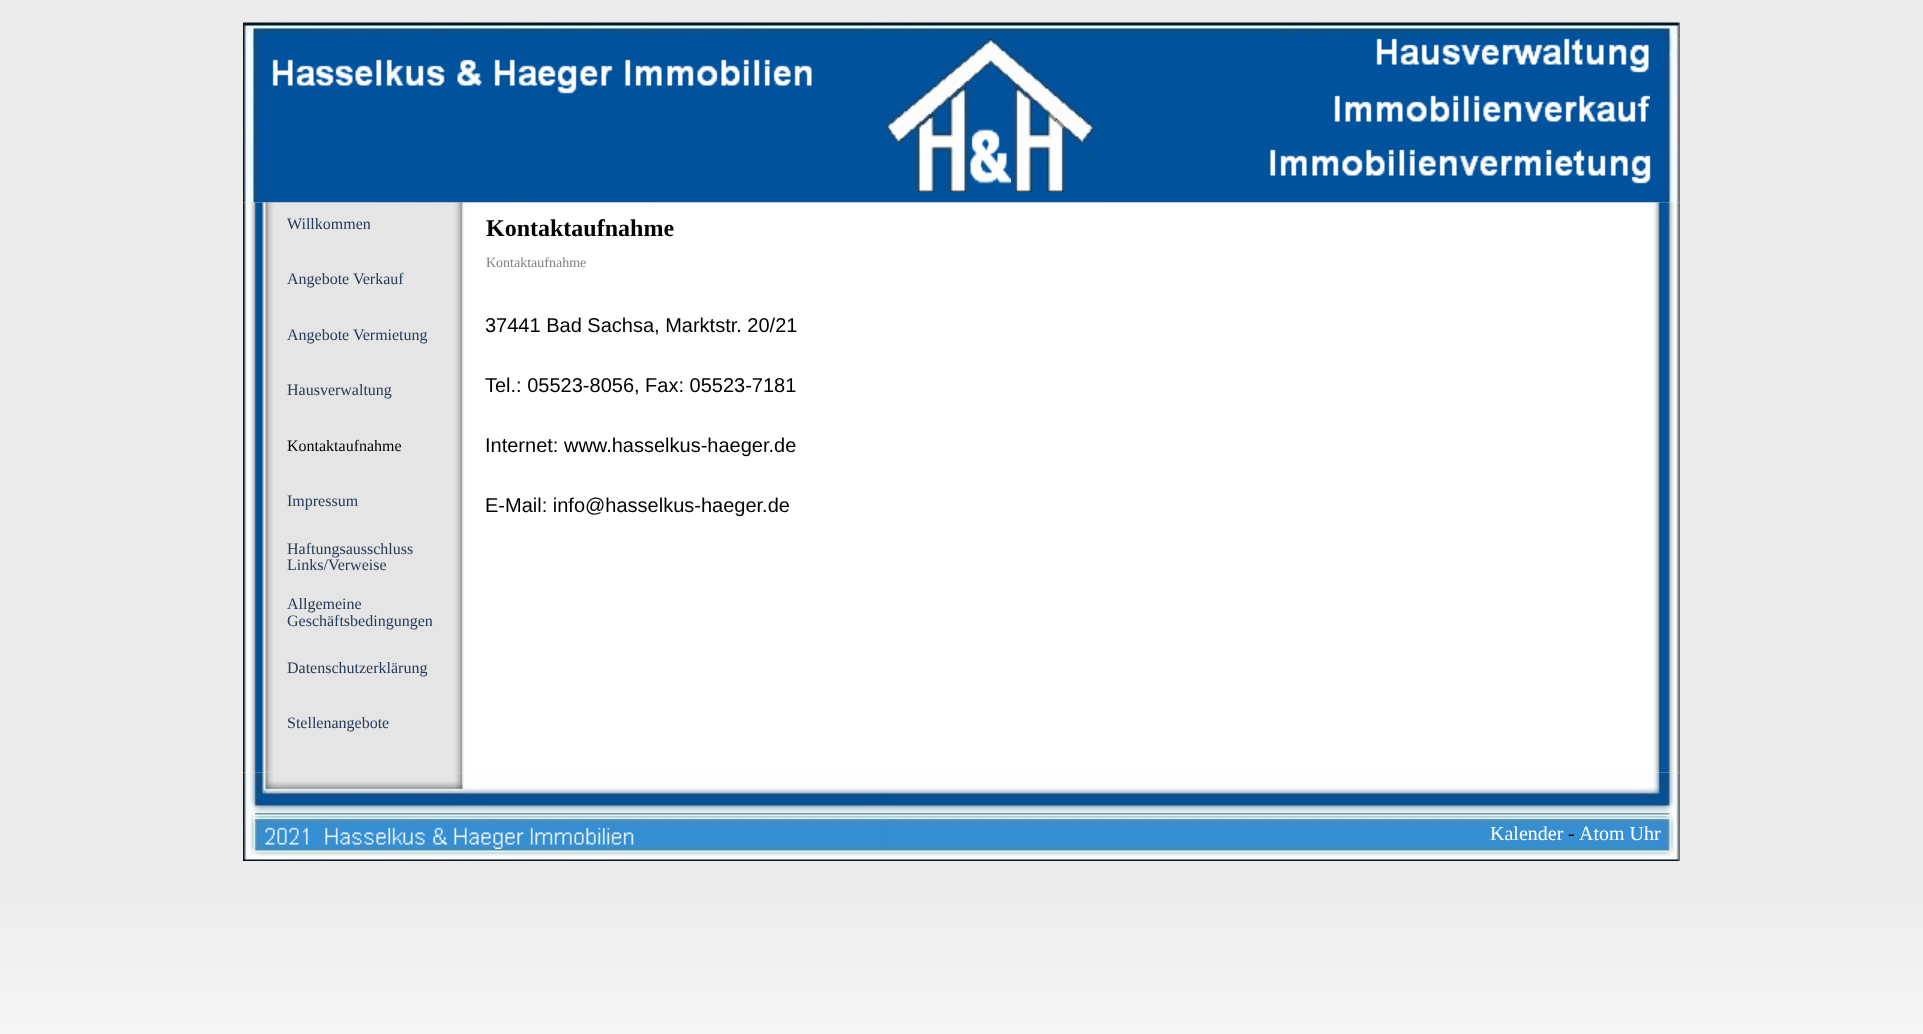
<svg xmlns="http://www.w3.org/2000/svg" width="1923" height="1034" viewBox="0 0 1923 1034">
  <style>
    .t1 { font: 16px Liberation Serif; fill: #253a58; }
    .t2 { font: 16px Liberation Serif; fill: #000; }
    .t3 { font: bold 24px Liberation Serif; fill: #000; }
    .t4 { font: 14px Liberation Serif; fill: #808080; }
    .t5 { font: 20px Liberation Sans; fill: #000; }
    .t6 { font: 20px Liberation Serif; fill: #fff; }
    .t7 { font: 20px Liberation Serif; fill: #000; }
  </style>
  <rect width="100%" height="100%" fill="#fff"/>
  <image x="0" y="0" width="1923" height="1034" href="images/1.png"/>
  <image x="243" y="22" width="1437" height="181" href="images/2.png"/>
  <image x="272" y="59" width="540" height="35" href="images/3.png"/>
  <image x="886" y="39" width="208" height="153" href="images/4.png"/>
  <image x="1376" y="38" width="273" height="35" href="images/5.png"/>
  <image x="1334" y="95" width="316" height="27" href="images/6.png"/>
  <image x="970" y="128" width="41" height="56" href="images/7.png"/>
  <image x="1270" y="149" width="381" height="35" href="images/8.png"/>
  <image x="453" y="202" width="1227" height="571" href="images/10.png"/>
  <image x="243" y="772" width="1437" height="89" href="images/11.png"/>
  <image x="243" y="202" width="210" height="571" href="images/9.png"/>
  <text x="287" y="229" class="t1">Willkommen</text>
  <text x="287" y="284" class="t1">Angebote Verkauf</text>
  <text x="287" y="340" class="t1">Angebote Vermietung</text>
  <text x="287" y="395" class="t1">Hausverwaltung</text>
  <text x="287" y="451" class="t2">Kontaktaufnahme</text>
  <text x="287" y="506" class="t1">Impressum</text>
  <text x="287" y="554" class="t1">Haftungsausschluss</text>
  <text x="287" y="570" class="t1">Links/Verweise</text>
  <text x="287" y="609" class="t1">Allgemeine</text>
  <text x="287" y="626" class="t1">Geschäftsbedingungen</text>
  <text x="287" y="673" class="t1">Datenschutzerklärung</text>
  <text x="287" y="728" class="t1">Stellenangebote</text>
  <text x="486" y="236" class="t3">Kontaktaufnahme</text>
  <text x="486" y="267" class="t4">Kontaktaufnahme</text>
  <text x="485" y="332" class="t5">37441 Bad Sachsa, Marktstr. 20/21</text>
  <text x="485" y="392" class="t5">Tel.: 05523-8056, Fax: 05523-7181</text>
  <text x="485" y="452" class="t5">Internet: www.hasselkus-haeger.de</text>
  <text x="485" y="512" class="t5">E-Mail: info@hasselkus-haeger.de</text>
  <image x="265" y="827" width="369" height="22" href="images/12.png"/>
  <text x="1490" y="840" class="t6">Kalender</text>
  <text x="1568" y="840" class="t7">-</text>
  <text x="1579" y="840" class="t6">Atom Uhr</text>
</svg>
